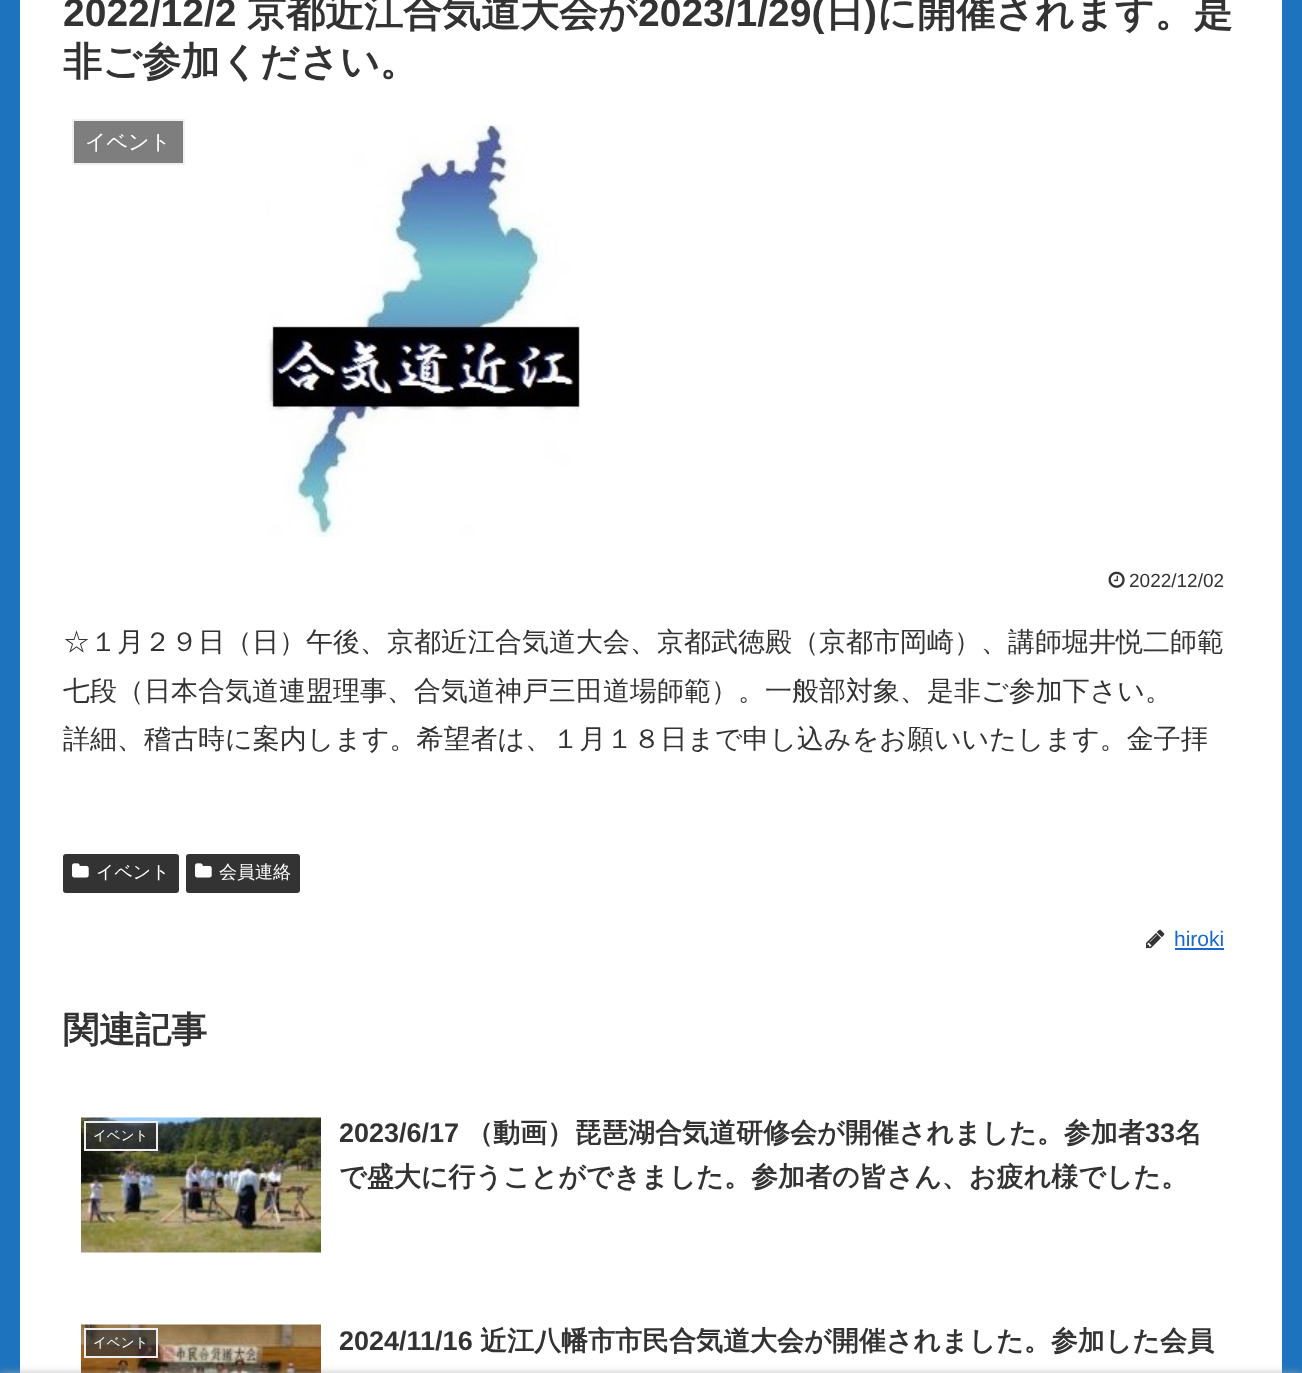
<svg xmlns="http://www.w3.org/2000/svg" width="1302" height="1373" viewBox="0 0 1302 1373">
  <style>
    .t1 { font: bold 39px Liberation Sans; fill: #333; }
    .t2 { font: bold 39px WenQuanYi Zen Hei; fill: #333; }
    .t3 { font: 500 21px WenQuanYi Zen Hei; fill: #fff; }
    .t4 { font: 19px Liberation Sans; fill: #333; }
    .t5 { font: 500 27px WenQuanYi Zen Hei; fill: #333; }
    .t6 { font: 500 18px WenQuanYi Zen Hei; fill: #fff; }
    .t7 { font: 21px Liberation Sans; fill: #1967d2; }
    .t8 { font: bold 36px WenQuanYi Zen Hei; fill: #333; }
    .t9 { font: 500 13.5px WenQuanYi Zen Hei; fill: #fff; }
    .t10 { font: bold 27px Liberation Sans; fill: #333; }
    .t11 { font: bold 27px WenQuanYi Zen Hei; fill: #333; }
  </style>
  <rect width="100%" height="100%" fill="#1e73be"/>
  <rect x="20" y="0" width="1262" height="1373" fill="#fff"/>
  <text x="63" y="26" class="t1">2022/12/2</text>
  <text x="247" y="26" class="t2">京都近江合気道大会が</text>
  <text x="638" y="26" class="t1">2023/1/29(</text>
  <text x="825" y="26" class="t2">日</text>
  <text x="864" y="26" class="t1">)</text>
  <text x="877" y="26" class="t2">に開催されます。是</text>
  <text x="63" y="75" class="t2">非ご参加ください。</text>
  <rect x="73" y="120" width="111" height="44" fill="#7e7e7e" stroke="#f0f0f0" stroke-width="2"/>
  <text x="85" y="149" class="t3">イベント</text>
  <image x="266" y="125" width="314" height="412" href="images/1.png"/>
  <image x="1108" y="571" width="17" height="17" href="images/2.png"/>
  <text x="1129" y="587" class="t4">2022/12/02</text>
  <text x="63" y="651" class="t5">☆１月２９日（日）午後、京都近江合気道大会、京都武徳殿（京都市岡崎）、講師堀井悦二師範</text>
  <text x="63" y="700" class="t5">七段（日本合気道連盟理事、合気道神戸三田道場師範）。一般部対象、是非ご参加下さい。</text>
  <text x="63" y="748" class="t5">詳細、稽古時に案内します。希望者は、１月１８日まで申し込みをお願いいたします。金子拝</text>
  <rect x="63" y="854" width="116" height="39" rx="3" fill="#333"/>
  <image x="72" y="863" width="17" height="15" href="images/3.png"/>
  <text x="96" y="878" class="t6">イベント</text>
  <rect x="186" y="854" width="114" height="39" rx="3" fill="#333"/>
  <image x="195" y="863" width="17" height="15" href="images/3.png"/>
  <text x="219" y="878" class="t6">会員連絡</text>
  <image x="1146" y="929" width="19" height="20" href="images/4.png"/>
  <text x="1174" y="946" class="t7">hiroki</text>
  <rect x="1175" y="948" width="49" height="2" fill="#1967d2"/>
  <text x="63" y="1042" class="t8">関連記事</text>
  <image x="81" y="1117" width="240" height="136" href="images/5.png"/>
  <rect x="85" y="1122" width="72" height="28" fill="#333333b3" stroke="#eee" stroke-width="2"/>
  <text x="93" y="1140" class="t9">イベント</text>
  <text x="339" y="1142" class="t10">2023/6/17</text>
  <text x="466" y="1142" class="t11">（動画）琵琶湖合気道研修会が開催されました。参加者</text>
  <text x="1145" y="1142" class="t10">33</text>
  <text x="1175" y="1142" class="t11">名</text>
  <text x="339" y="1186" class="t11">で盛大に行うことができました。参加者の皆さん、お疲れ様でした。</text>
  <image x="81" y="1324" width="240" height="49" href="images/6.png"/>
  <rect x="85" y="1329" width="72" height="28" fill="#333333b3" stroke="#eee" stroke-width="2"/>
  <text x="93" y="1347" class="t9">イベント</text>
  <text x="339" y="1350" class="t10">2024/11/16</text>
  <text x="480" y="1350" class="t11">近江八幡市市民合気道大会が開催されました。参加した会員</text>
  <rect x="0" y="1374" width="1302" height="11" fill="#a9a9a9" filter="blur(4px)"/>
</svg>
